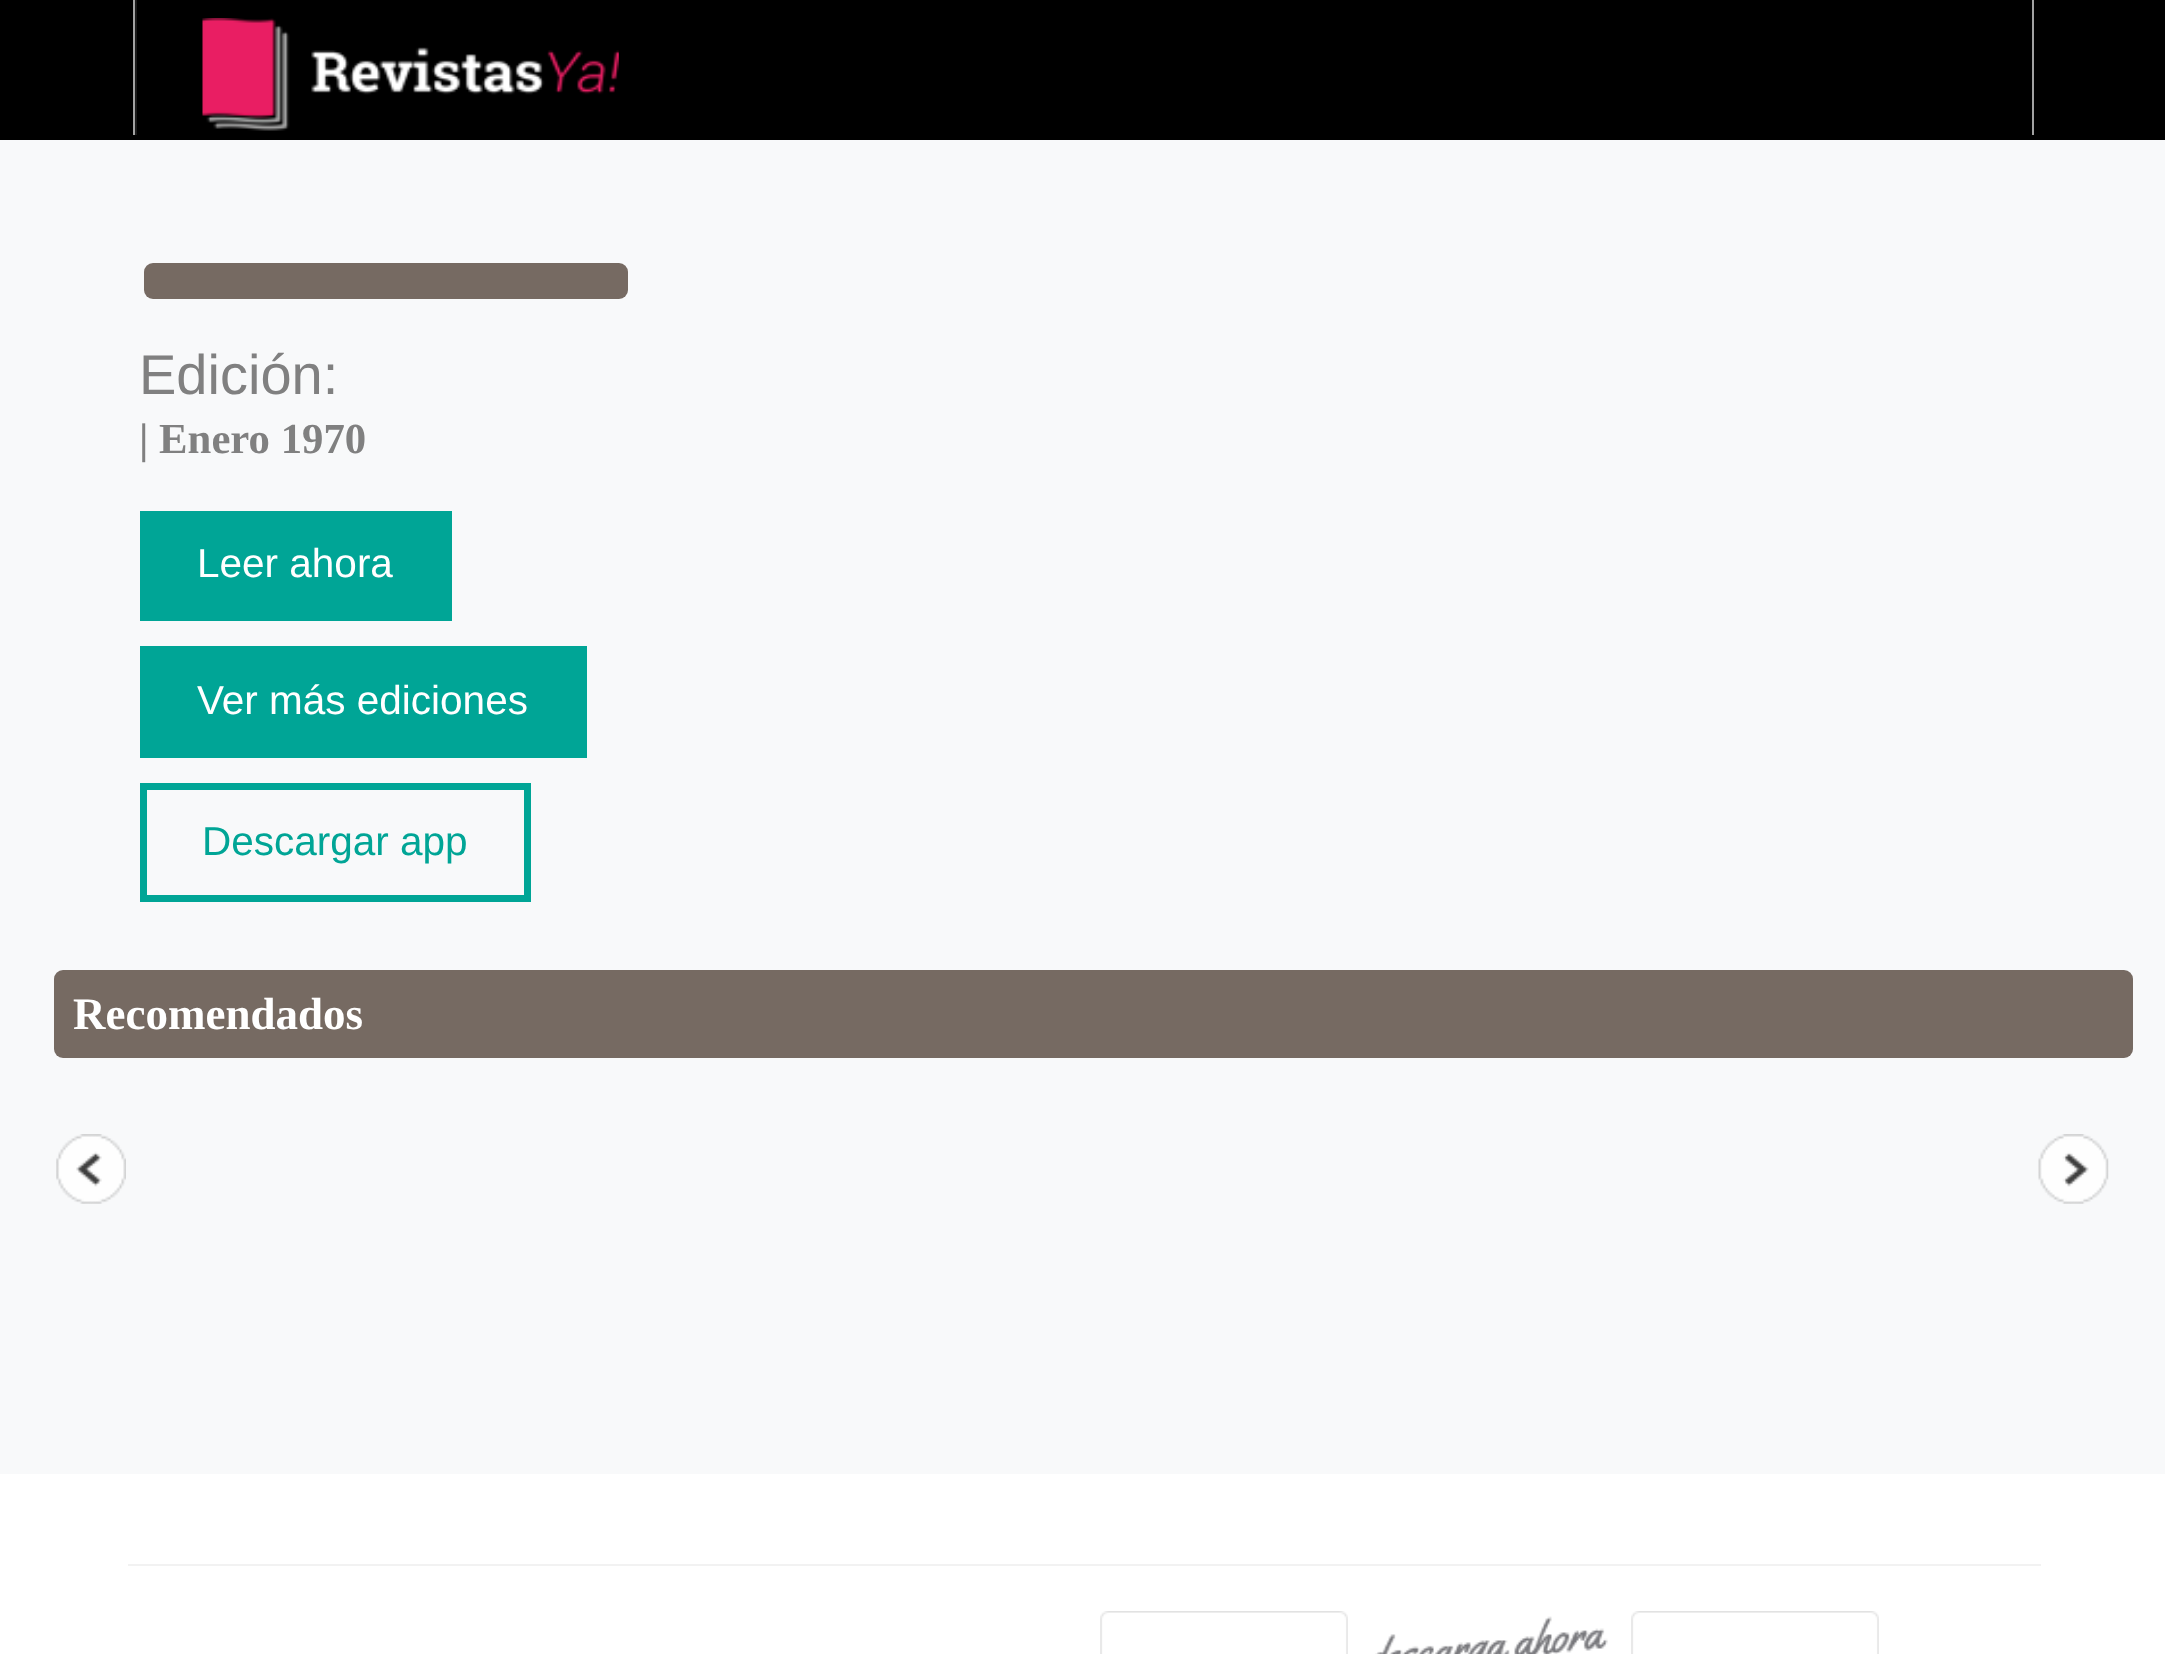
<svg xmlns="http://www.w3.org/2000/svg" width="2165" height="1654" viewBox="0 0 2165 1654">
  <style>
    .t1 { font: 56px Liberation Sans; fill: #808080; }
    .t2 { font: bold 42.75px Liberation Serif; fill: #808080; }
    .t3 { font: 40.5px Liberation Sans; fill: #fff; }
    .t4 { font: 40.5px Liberation Sans; fill: #00a596; }
    .t5 { font: bold 45px Liberation Serif; fill: #fff; }
  </style>
  <rect width="100%" height="100%" fill="#f8f9fa"/>
  <rect x="0" y="0" width="2165" height="140" fill="#000"/>
  <rect x="135" y="0" width="2" height="135" fill="#1a1a1a"/>
  <rect x="133" y="0" width="2" height="135" fill="#a2a2a2"/>
  <image x="202" y="18" width="417" height="113" href="images/1.png"/>
  <rect x="2032" y="0" width="2" height="135" fill="#a2a2a2"/>
  <rect x="144" y="263" width="484" height="36" rx="9" fill="#766a62"/>
  <text x="139" y="394" class="t1">Edición:</text>
  <text x="139" y="453" class="t2">| Enero 1970</text>
  <rect x="140" y="511" width="312" height="110" fill="#00a596"/>
  <text x="197" y="577" class="t3">Leer ahora</text>
  <rect x="140" y="646" width="447" height="112" fill="#00a596"/>
  <text x="197" y="714" class="t3">Ver más ediciones</text>
  <rect x="143.5" y="786.5" width="384" height="112" fill="none" stroke="#00a596" stroke-width="7"/>
  <text x="202" y="855" class="t4">Descargar app</text>
  <rect x="54" y="970" width="2079" height="88" rx="9" fill="#766a62"/>
  <text x="73" y="1029" class="t5">Recomendados</text>
  <image x="56" y="1134" width="70" height="70" href="images/2.png"/>
  <image x="2038" y="1134" width="71" height="70" href="images/3.png"/>
  <rect x="0" y="1474" width="2165" height="180" fill="#fff"/>
  <rect x="128" y="1564" width="1913" height="2" fill="#f2f2f2"/>
  <image x="1100" y="1611" width="248" height="43" href="images/4.png"/>
  <image x="1375" y="1616" width="233" height="38" href="images/5.png"/>
  <image x="1631" y="1611" width="248" height="43" href="images/4.png"/>
</svg>
